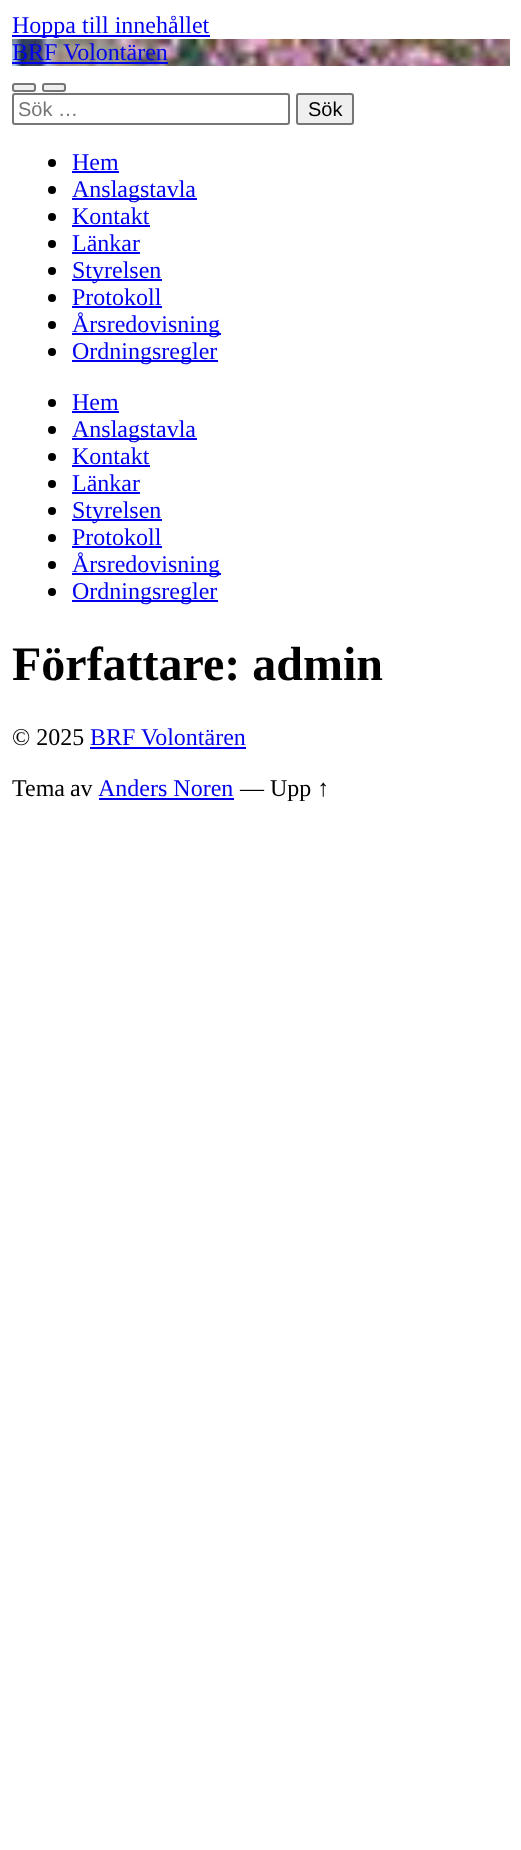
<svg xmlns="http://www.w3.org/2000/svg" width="521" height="1850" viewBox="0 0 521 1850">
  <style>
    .t1 { font: 24px Liberation Serif; fill: #00e; }
    .t2 { font: 20px Liberation Sans; fill: #757575; }
    .t3 { font: 20px Liberation Sans; fill: #000; }
    .t4 { font: bold 48px Liberation Serif; fill: #000; }
    .t5 { font: 24px Liberation Serif; fill: #000; }
  </style>
  <rect width="100%" height="100%" fill="#fff"/>
  <rect x="12" y="35" width="198" height="2" fill="#00e"/>
  <text x="12" y="33" class="t1">Hoppa till innehållet</text>
  <image x="12" y="39" width="498" height="27" href="images/1.png"/>
  <text x="12" y="60" class="t1">BRF Volontären</text>
  <rect x="12" y="62" width="156" height="2" fill="#00e"/>
  <rect x="13" y="84" width="22" height="7" rx="2" fill="#efefef" stroke="#767676" stroke-width="2"/>
  <rect x="43" y="84" width="22" height="7" rx="2" fill="#efefef" stroke="#767676" stroke-width="2"/>
  <rect x="13" y="94" width="276" height="30" rx="2" fill="none" stroke="#767676" stroke-width="2"/>
  <text x="18" y="116" class="t2">Sök …</text>
  <rect x="297" y="94" width="56" height="30" rx="2" fill="#efefef" stroke="#767676" stroke-width="2"/>
  <text x="308" y="116" class="t3">Sök</text>
  <circle cx="52" cy="163" r="4" fill="#000"/>
  <text x="72" y="170" class="t1">Hem</text>
  <rect x="72" y="171" width="47" height="2" fill="#00e"/>
  <circle cx="52" cy="190" r="4" fill="#000"/>
  <rect x="72" y="198" width="125" height="2" fill="#00e"/>
  <text x="72" y="197" class="t1">Anslagstavla</text>
  <circle cx="52" cy="217" r="4" fill="#000"/>
  <text x="72" y="224" class="t1">Kontakt</text>
  <rect x="72" y="225" width="78" height="2" fill="#00e"/>
  <circle cx="52" cy="244" r="4" fill="#000"/>
  <text x="72" y="251" class="t1">Länkar</text>
  <rect x="72" y="252" width="68" height="2" fill="#00e"/>
  <circle cx="52" cy="271" r="4" fill="#000"/>
  <rect x="72" y="279" width="90" height="2" fill="#00e"/>
  <text x="72" y="278" class="t1">Styrelsen</text>
  <circle cx="52" cy="298" r="4" fill="#000"/>
  <text x="72" y="305" class="t1">Protokoll</text>
  <rect x="72" y="306" width="90" height="2" fill="#00e"/>
  <circle cx="52" cy="325" r="4" fill="#000"/>
  <rect x="72" y="333" width="149" height="2" fill="#00e"/>
  <text x="72" y="332" class="t1">Årsredovisning</text>
  <circle cx="52" cy="352" r="4" fill="#000"/>
  <rect x="72" y="360" width="146" height="2" fill="#00e"/>
  <text x="72" y="359" class="t1">Ordningsregler</text>
  <circle cx="52" cy="403" r="4" fill="#000"/>
  <text x="72" y="410" class="t1">Hem</text>
  <rect x="72" y="411" width="47" height="2" fill="#00e"/>
  <circle cx="52" cy="430" r="4" fill="#000"/>
  <rect x="72" y="438" width="125" height="2" fill="#00e"/>
  <text x="72" y="437" class="t1">Anslagstavla</text>
  <circle cx="52" cy="457" r="4" fill="#000"/>
  <text x="72" y="464" class="t1">Kontakt</text>
  <rect x="72" y="465" width="78" height="2" fill="#00e"/>
  <circle cx="52" cy="484" r="4" fill="#000"/>
  <text x="72" y="491" class="t1">Länkar</text>
  <rect x="72" y="492" width="68" height="2" fill="#00e"/>
  <circle cx="52" cy="511" r="4" fill="#000"/>
  <rect x="72" y="519" width="90" height="2" fill="#00e"/>
  <text x="72" y="518" class="t1">Styrelsen</text>
  <circle cx="52" cy="538" r="4" fill="#000"/>
  <text x="72" y="545" class="t1">Protokoll</text>
  <rect x="72" y="546" width="90" height="2" fill="#00e"/>
  <circle cx="52" cy="565" r="4" fill="#000"/>
  <rect x="72" y="573" width="149" height="2" fill="#00e"/>
  <text x="72" y="572" class="t1">Årsredovisning</text>
  <circle cx="52" cy="592" r="4" fill="#000"/>
  <rect x="72" y="600" width="146" height="2" fill="#00e"/>
  <text x="72" y="599" class="t1">Ordningsregler</text>
  <text x="12" y="680" class="t4">Författare: admin</text>
  <text x="12" y="745" class="t5">© 2025</text>
  <text x="90" y="745" class="t1">BRF Volontären</text>
  <rect x="90" y="747" width="156" height="2" fill="#00e"/>
  <text x="12" y="796" word-spacing="-1" class="t5">Tema av</text>
  <text x="98" y="796" class="t1">Anders Noren</text>
  <rect x="99" y="798" width="135" height="2" fill="#00e"/>
  <text x="240" y="796" class="t5">— Upp ↑</text>
</svg>
